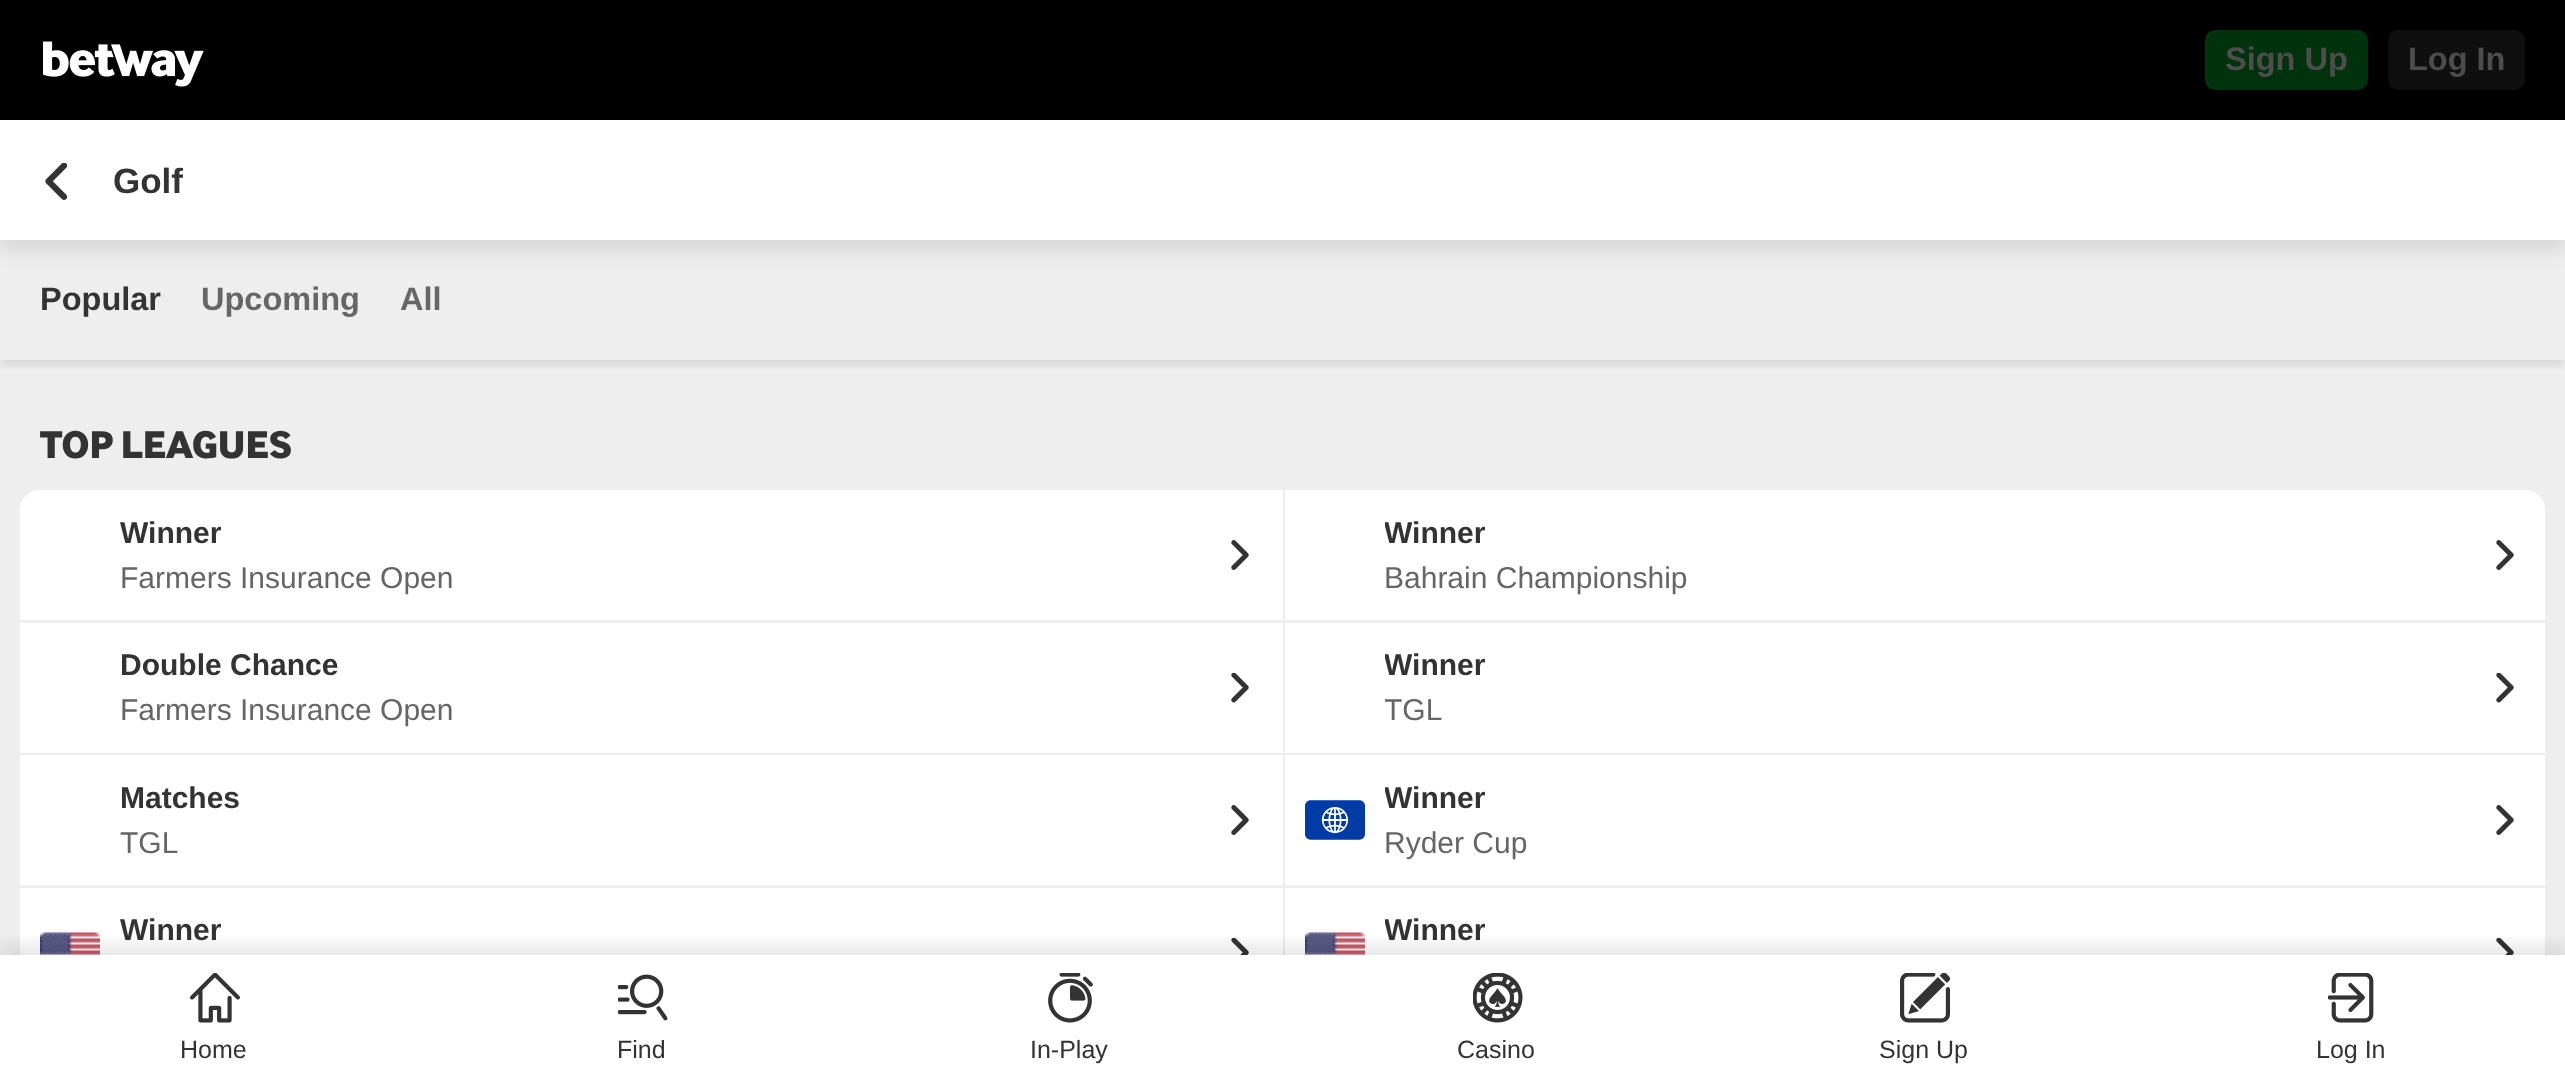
<svg xmlns="http://www.w3.org/2000/svg" width="2565" height="1074" viewBox="0 0 2565 1074">
  <style>
    .t1 { font: bold 32.5px Liberation Sans; fill: #4d4d4d; }
    .t2 { font: bold 35px Liberation Sans; fill: #333; }
    .t3 { font: bold 32.5px Liberation Sans; fill: #333; }
    .t4 { font: bold 32.5px Liberation Sans; fill: #666; }
    .t5 { font: bold 40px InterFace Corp; fill: #333; }
    .t6 { font: bold 30px Liberation Sans; fill: #333; }
    .t7 { font: 30px Liberation Sans; fill: #666; }
    .t8 { font: 25px Liberation Sans; fill: #333; }
  </style>
  <defs>
    <clipPath id="clip1"><rect x="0" y="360" width="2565" height="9"/></clipPath>
    <clipPath id="clip2"><rect x="1385" y="510" width="1085" height="45"/></clipPath>
    <clipPath id="clip3"><rect x="1385" y="643" width="1085" height="45"/></clipPath>
    <clipPath id="clip4"><rect x="1385" y="688" width="1085" height="45"/></clipPath>
    <clipPath id="clip5"><rect x="1385" y="775" width="1085" height="45"/></clipPath>
    <clipPath id="clip6"><rect x="1385" y="908" width="1085" height="45"/></clipPath>
    <clipPath id="clip7"><rect x="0" y="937" width="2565" height="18"/></clipPath>
  </defs>
  <rect width="100%" height="100%" fill="#eee"/>
  <rect x="0" y="0" width="2565" height="120" fill="#000"/>
  <image x="43" y="41" width="161" height="46" href="images/1.png"/>
  <rect x="2205" y="30" width="163" height="60" rx="10" fill="#00320b"/>
  <text x="2225" y="70" class="t1">Sign Up</text>
  <rect x="2388" y="30" width="137" height="60" rx="10" fill="#0f0f0f"/>
  <text x="2408" y="70" class="t1">Log In</text>
  <rect x="0" y="130" width="2565" height="120" fill="#0000001a" filter="blur(10px)"/>
  <g clip-path="url(#clip1)">
    <rect x="0" y="245" width="2565" height="120" fill="#0000001a" filter="blur(5px)"/>
  </g>
  <rect x="0" y="120" width="2565" height="120" fill="#fff"/>
  <image x="45" y="163" width="23" height="37" href="images/2.png"/>
  <text x="113" y="193" class="t2">Golf</text>
  <text x="40" y="310" class="t3">Popular</text>
  <text x="201" y="310" class="t4">Upcoming</text>
  <text x="400" y="310" class="t4">All</text>
  <text x="40" y="458" class="t5">TOP LEAGUES</text>
  <path d="M40 490H1283V620H20V510C20 499 29 490 40 490Z" fill="#fff"/>
  <text x="120" y="543" class="t6">Winner</text>
  <text x="120" y="588" class="t7">Farmers Insurance Open</text>
  <image x="1231" y="540" width="18" height="30" href="images/3.png"/>
  <path d="M1285 490H2525C2536 490 2545 499 2545 510V620H1285Z" fill="#fff"/>
  <g clip-path="url(#clip2)">
    <text x="1384" y="543" class="t6">Winner</text>
  </g>
  <text x="1384" y="588" class="t7">Bahrain Championship</text>
  <image x="2496" y="540" width="18" height="30" href="images/3.png"/>
  <rect x="20" y="623" width="1263" height="130" fill="#fff"/>
  <text x="120" y="675" class="t6">Double Chance</text>
  <text x="120" y="720" class="t7">Farmers Insurance Open</text>
  <image x="1231" y="673" width="18" height="30" href="images/4.png"/>
  <rect x="1285" y="623" width="1260" height="130" fill="#fff"/>
  <g clip-path="url(#clip3)">
    <text x="1384" y="675" class="t6">Winner</text>
  </g>
  <g clip-path="url(#clip4)">
    <text x="1384" y="720" class="t7">TGL</text>
  </g>
  <image x="2496" y="673" width="18" height="30" href="images/4.png"/>
  <rect x="20" y="755" width="1263" height="130" fill="#fff"/>
  <text x="120" y="808" class="t6">Matches</text>
  <text x="120" y="853" class="t7">TGL</text>
  <image x="1231" y="805" width="18" height="30" href="images/3.png"/>
  <rect x="1285" y="755" width="1260" height="130" fill="#fff"/>
  <image x="1305" y="800" width="60" height="40" href="images/5.png"/>
  <g clip-path="url(#clip5)">
    <text x="1384" y="808" class="t6">Winner</text>
  </g>
  <text x="1384" y="853" class="t7">Ryder Cup</text>
  <image x="2496" y="805" width="18" height="30" href="images/3.png"/>
  <rect x="20" y="888" width="1263" height="67" fill="#fff"/>
  <image x="40" y="930" width="60" height="25" href="images/6.png"/>
  <text x="120" y="940" class="t6">Winner</text>
  <image x="1231" y="938" width="18" height="17" href="images/7.png"/>
  <rect x="1285" y="888" width="1260" height="67" fill="#fff"/>
  <image x="1305" y="930" width="60" height="25" href="images/6.png"/>
  <g clip-path="url(#clip6)">
    <text x="1384" y="940" class="t6">Winner</text>
  </g>
  <image x="2496" y="938" width="18" height="17" href="images/7.png"/>
  <rect x="0" y="955" width="2565" height="119" fill="#fff"/>
  <g clip-path="url(#clip7)">
    <rect x="0" y="945" width="2565" height="120" fill="#0000001a" filter="blur(10px)"/>
  </g>
  <image x="190" y="973" width="50" height="50" href="images/8.png"/>
  <text x="180" y="1058" class="t8">Home</text>
  <image x="618" y="974" width="50" height="47" href="images/9.png"/>
  <text x="617" y="1058" class="t8">Find</text>
  <image x="1048" y="973" width="45" height="50" href="images/10.png"/>
  <text x="1030" y="1058" class="t8">In-Play</text>
  <image x="1473" y="973" width="50" height="50" href="images/11.png"/>
  <text x="1457" y="1058" class="t8">Casino</text>
  <image x="1900" y="973" width="50" height="50" href="images/12.png"/>
  <text x="1879" y="1058" class="t8">Sign Up</text>
  <image x="2328" y="973" width="46" height="50" href="images/13.png"/>
  <text x="2316" y="1058" class="t8">Log In</text>
</svg>
